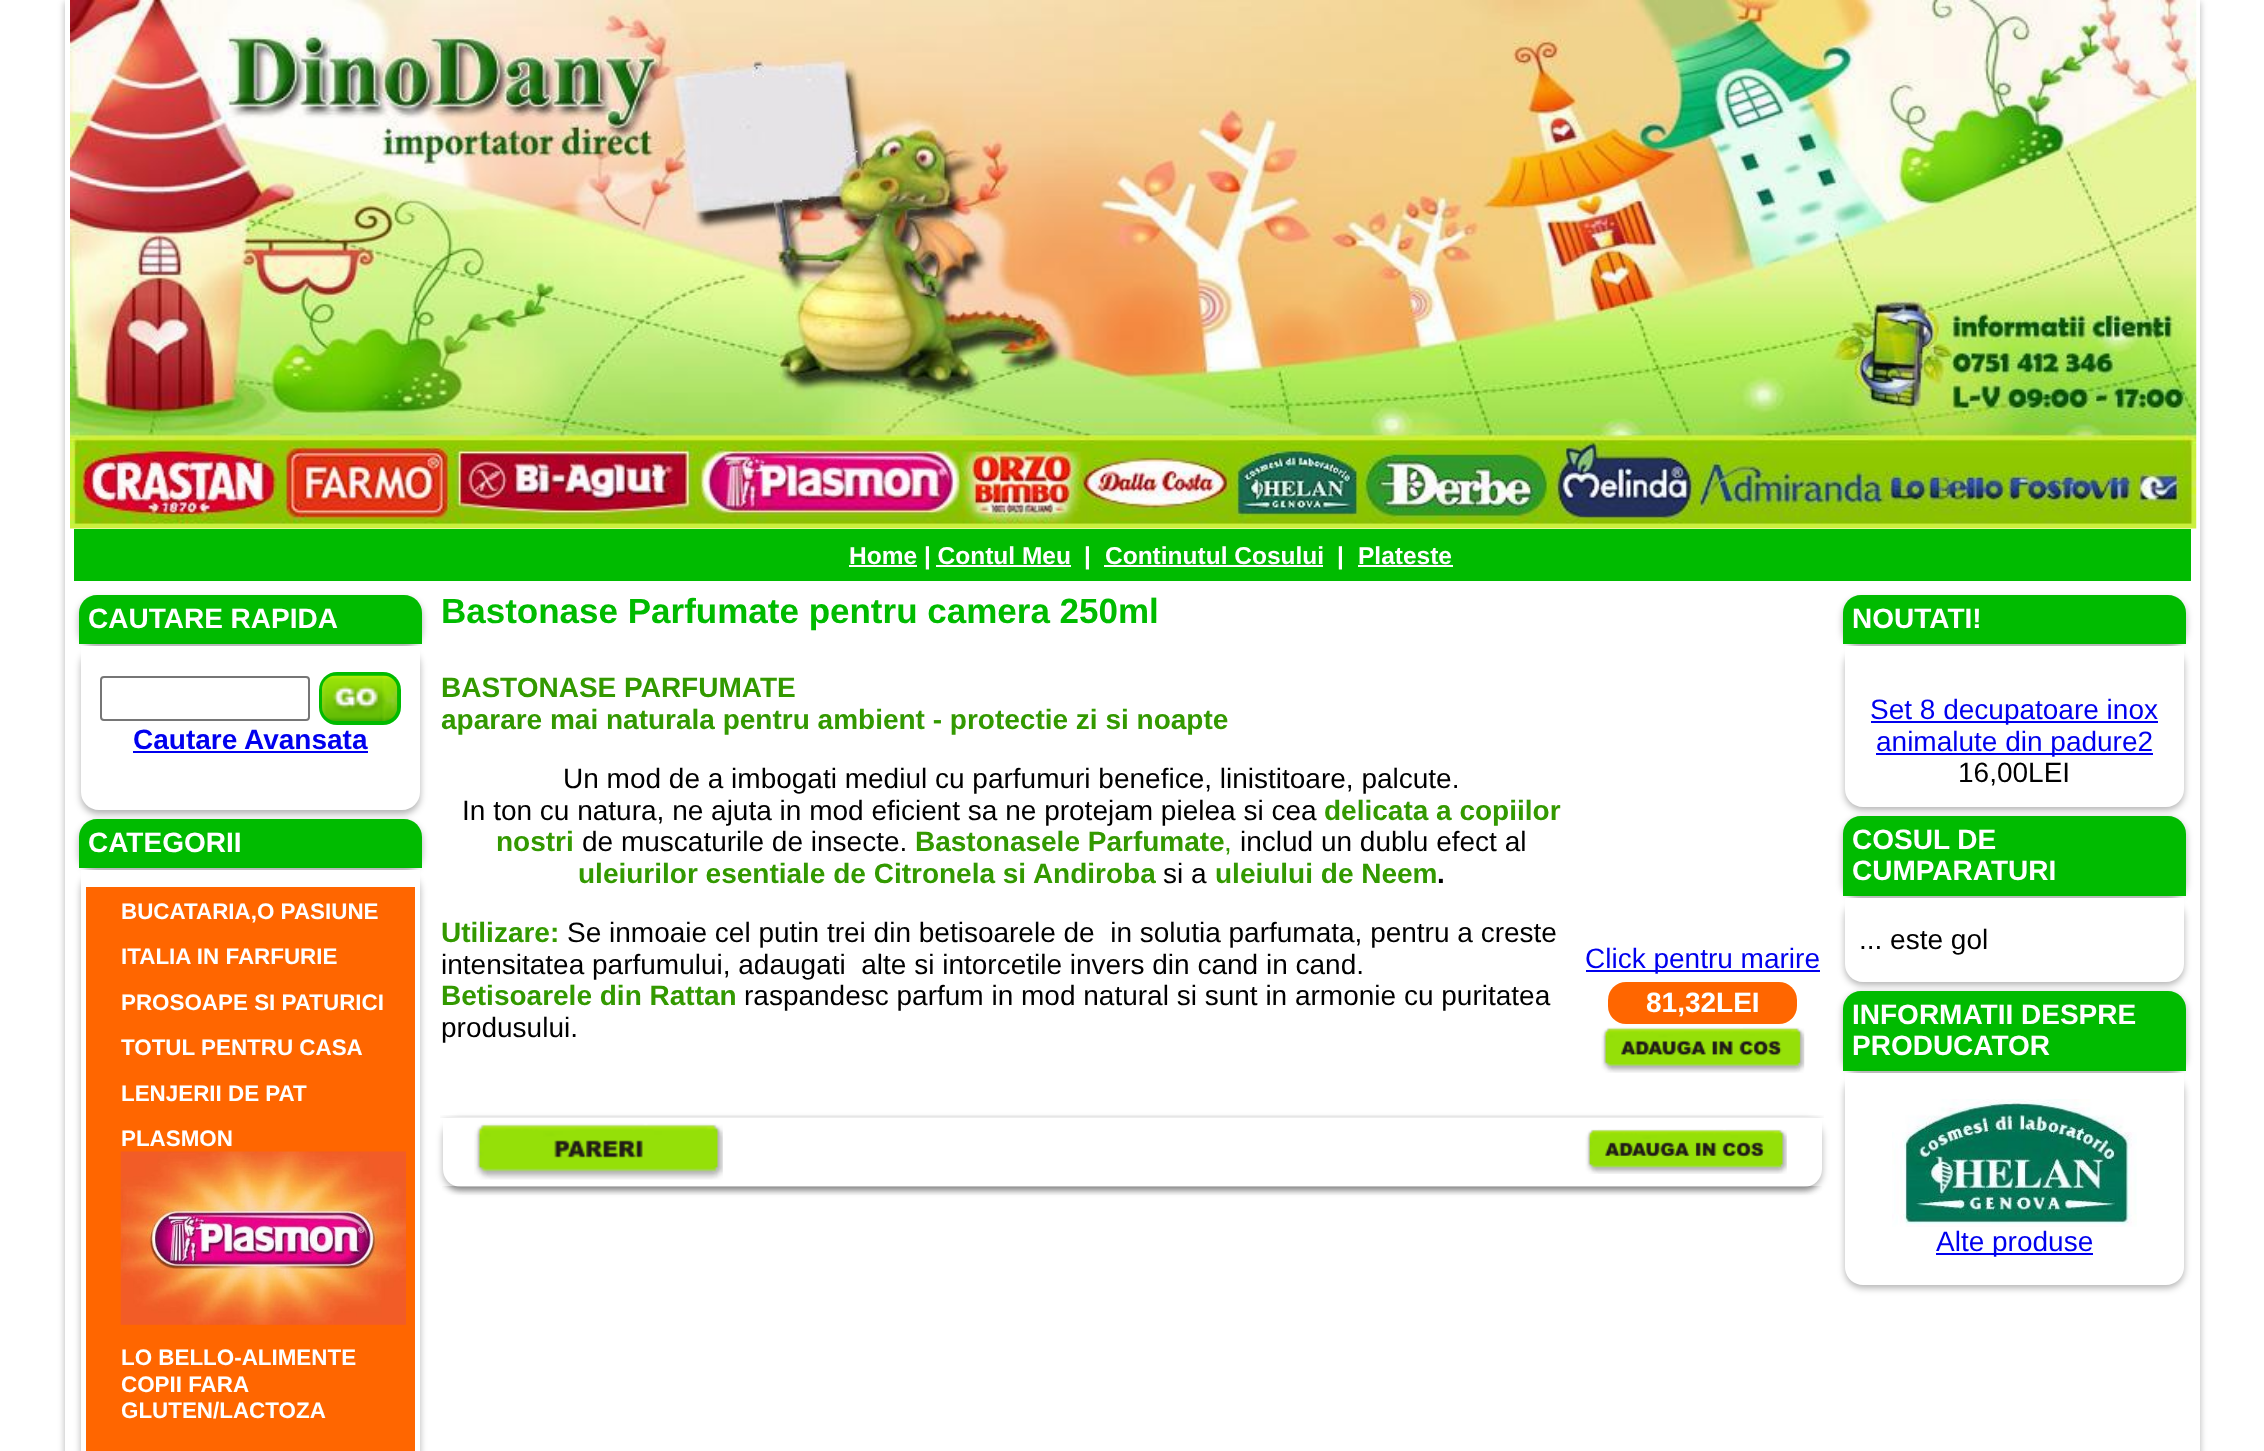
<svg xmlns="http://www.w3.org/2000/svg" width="2264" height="1451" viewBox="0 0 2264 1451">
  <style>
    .t1 { font: bold 24.5px Liberation Sans; fill: #fff; }
    .t2 { font: bold 28px Liberation Sans; fill: #fff; }
    .t3 { font: bold 28px Liberation Sans; fill: #00e; }
    .t4 { font: bold 22.4px Liberation Sans; fill: #fff; }
    .t5 { font: bold 35px Liberation Sans; fill: #0b0; }
    .t6 { font: bold 28px Liberation Sans; fill: #390; }
    .t7 { font: 28px Liberation Sans; fill: #000; }
    .t8 { font: 28px Liberation Sans; fill: #390; }
    .t9 { font: bold 28px Liberation Sans; fill: #000; }
    .t10 { font: 28px Liberation Sans; fill: #00e; }
  </style>
  <rect width="100%" height="100%" fill="#fff"/>
  <rect x="65" y="2" width="2135" height="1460" fill="#0000004d" filter="blur(3.5px)"/>
  <rect x="65" y="0" width="2135" height="1451" fill="#fff"/>
  <image x="70" y="0" width="2127" height="529" href="images/1.png"/>
  <rect x="74" y="529" width="2117" height="52" fill="#0b0"/>
  <rect x="849" y="565" width="68" height="2" fill="#fff"/>
  <text x="849" y="564" class="t1">Home | Contul Meu</text>
  <text x="1084" y="564" class="t1">|</text>
  <text x="1105" y="564" class="t1">Continutul Cosului</text>
  <rect x="1104" y="565" width="219" height="2" fill="#fff"/>
  <text x="1337" y="564" class="t1">|</text>
  <text x="1358" y="564" class="t1">Plateste</text>
  <rect x="1358" y="565" width="95" height="2" fill="#fff"/>
  <rect x="936" y="565" width="135" height="2" fill="#fff"/>
  <rect x="79" y="599" width="343" height="49" rx="18" fill="#0000004d" filter="blur(3.5px)"/>
  <path d="M97 595H404C414 595 422 603 422 613V644H79V613C79 603 87 595 97 595Z" fill="#0b0"/>
  <text x="88" y="628" class="t2">CAUTARE RAPIDA</text>
  <rect x="81" y="649" width="339" height="165" rx="18" fill="#0000004d" filter="blur(3.5px)"/>
  <path d="M81 646H420V792C420 802 412 810 402 810H99C89 810 81 802 81 792Z" fill="#fff"/>
  <rect x="101" y="677" width="208" height="43" rx="3" fill="none" stroke="#767676" stroke-width="2"/>
  <rect x="319" y="672" width="82" height="53" rx="18" fill="#0b0"/>
  <image x="322" y="675" width="76" height="46" href="images/2.png"/>
  <text x="133" y="749" class="t3">Cautare Avansata</text>
  <rect x="133" y="751" width="235" height="2" fill="#00e"/>
  <rect x="79" y="823" width="343" height="49" rx="18" fill="#0000004d" filter="blur(3.5px)"/>
  <path d="M97 819H404C414 819 422 827 422 837V868H79V837C79 827 87 819 97 819Z" fill="#0b0"/>
  <text x="88" y="852" class="t2">CATEGORII</text>
  <rect x="81" y="873" width="339" height="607" rx="18" fill="#0000004d" filter="blur(3.5px)"/>
  <rect x="81" y="870" width="339" height="581" fill="#fff"/>
  <rect x="86" y="887" width="329" height="564" fill="#f60"/>
  <text x="121" y="919" class="t4">BUCATARIA,O PASIUNE</text>
  <text x="121" y="964" class="t4">ITALIA IN FARFURIE</text>
  <text x="121" y="1010" class="t4">PROSOAPE SI PATURICI</text>
  <text x="121" y="1055" class="t4">TOTUL PENTRU CASA</text>
  <text x="121" y="1101" class="t4">LENJERII DE PAT</text>
  <text x="121" y="1146" class="t4">PLASMON</text>
  <image x="120" y="1151" width="286" height="174" href="images/3.png"/>
  <text x="121" y="1365" class="t4">LO BELLO-ALIMENTE</text>
  <text x="121" y="1392" class="t4">COPII FARA</text>
  <text x="121" y="1418" class="t4">GLUTEN/LACTOZA</text>
  <text x="441" y="623" class="t5">Bastonase Parfumate pentru camera 250ml</text>
  <text x="441" y="697" class="t6">BASTONASE PARFUMATE</text>
  <text x="441" y="729" class="t6">aparare mai naturala pentru ambient - protectie zi si noapte</text>
  <text x="563" y="788" class="t7">Un mod de a imbogati mediul cu parfumuri benefice, linistitoare, palcute.</text>
  <text x="462" y="820" class="t7">In ton cu natura, ne ajuta in mod eficient sa ne protejam pielea si cea</text>
  <text x="1324" y="820" class="t6">delicata a copiilor</text>
  <text x="496" y="851" class="t6">nostri</text>
  <text x="582" y="851" class="t7">de muscaturile de insecte.</text>
  <text x="915" y="851" class="t6">Bastonasele Parfumate</text>
  <text x="1224" y="851" class="t8">,</text>
  <text x="1240" y="851" class="t7">includ un dublu efect al</text>
  <text x="578" y="883" class="t6">uleiurilor esentiale de Citronela si Andiroba</text>
  <text x="1163" y="883" class="t7">si a</text>
  <text x="1215" y="883" class="t6">uleiului de Neem</text>
  <text x="1437" y="883" class="t9">.</text>
  <text x="441" y="942" class="t6">Utilizare:</text>
  <text x="567" y="942" class="t7" xml:space="preserve">Se inmoaie cel putin trei din betisoarele de  in solutia parfumata, pentru a creste</text>
  <text x="441" y="974" class="t7" xml:space="preserve">intensitatea parfumului, adaugati  alte si intorcetile invers din cand in cand.</text>
  <text x="441" y="1005" class="t6">Betisoarele din Rattan</text>
  <text x="744" y="1005" class="t7">raspandesc parfum in mod natural si sunt in armonie cu puritatea</text>
  <text x="441" y="1037" class="t7">produsului.</text>
  <rect x="1586" y="970" width="234" height="2" fill="#00e"/>
  <text x="1585" y="968" class="t10">Click pentru marire</text>
  <rect x="1608" y="982" width="189" height="42" rx="18" fill="#f60"/>
  <text x="1646" y="1012" class="t2">81,32LEI</text>
  <image x="1601" y="1027" width="204" height="46" href="images/4.png"/>
  <rect x="443" y="1120" width="1379" height="70" rx="18" fill="#0000004d" filter="blur(3.5px)"/>
  <path d="M443 1117H1822V1169C1822 1179 1814 1187 1804 1187H461C451 1187 443 1179 443 1169Z" fill="#fff"/>
  <image x="474" y="1123" width="249" height="57" href="images/5.png"/>
  <image x="1585" y="1129" width="202" height="45" href="images/6.png"/>
  <image x="440" y="1115" width="1384" height="3" href="images/7.png"/>
  <image x="442" y="1186" width="1380" height="9" href="images/8.png"/>
  <rect x="1843" y="599" width="343" height="49" rx="18" fill="#0000004d" filter="blur(3.5px)"/>
  <path d="M1861 595H2168C2178 595 2186 603 2186 613V644H1843V613C1843 603 1851 595 1861 595Z" fill="#0b0"/>
  <text x="1852" y="628" class="t2">NOUTATI!</text>
  <rect x="1845" y="649" width="339" height="161" rx="18" fill="#0000004d" filter="blur(3.5px)"/>
  <path d="M1845 646H2184V789C2184 799 2176 807 2166 807H1863C1853 807 1845 799 1845 789Z" fill="#fff"/>
  <rect x="1871" y="721" width="287" height="2" fill="#00e"/>
  <text x="1870" y="719" class="t10">Set 8 decupatoare inox</text>
  <rect x="1876" y="753" width="277" height="2" fill="#00e"/>
  <text x="1876" y="751" class="t10">animalute din padure2</text>
  <text x="1958" y="782" class="t7">16,00LEI</text>
  <rect x="1843" y="819" width="343" height="81" rx="18" fill="#0000004d" filter="blur(3.5px)"/>
  <path d="M1861 816H2168C2178 816 2186 824 2186 834V896H1843V834C1843 824 1851 816 1861 816Z" fill="#0b0"/>
  <text x="1852" y="849" class="t2">COSUL DE</text>
  <text x="1852" y="880" class="t2">CUMPARATURI</text>
  <rect x="1845" y="901" width="339" height="84" rx="18" fill="#0000004d" filter="blur(3.5px)"/>
  <path d="M1845 898H2184V964C2184 974 2176 982 2166 982H1863C1853 982 1845 974 1845 964Z" fill="#fff"/>
  <text x="1859" y="949" class="t7">... este gol</text>
  <rect x="1843" y="994" width="343" height="81" rx="18" fill="#0000004d" filter="blur(3.5px)"/>
  <path d="M1861 991H2168C2178 991 2186 999 2186 1009V1071H1843V1009C1843 999 1851 991 1861 991Z" fill="#0b0"/>
  <text x="1852" y="1024" class="t2">INFORMATII DESPRE</text>
  <text x="1852" y="1055" class="t2">PRODUCATOR</text>
  <rect x="1845" y="1076" width="339" height="212" rx="18" fill="#0000004d" filter="blur(3.5px)"/>
  <path d="M1845 1073H2184V1267C2184 1277 2176 1285 2166 1285H1863C1853 1285 1845 1277 1845 1267Z" fill="#fff"/>
  <image x="1892" y="1099" width="245" height="128" href="images/9.png"/>
  <rect x="1936" y="1253" width="157" height="2" fill="#00e"/>
  <text x="1936" y="1251" class="t10">Alte produse</text>
</svg>
